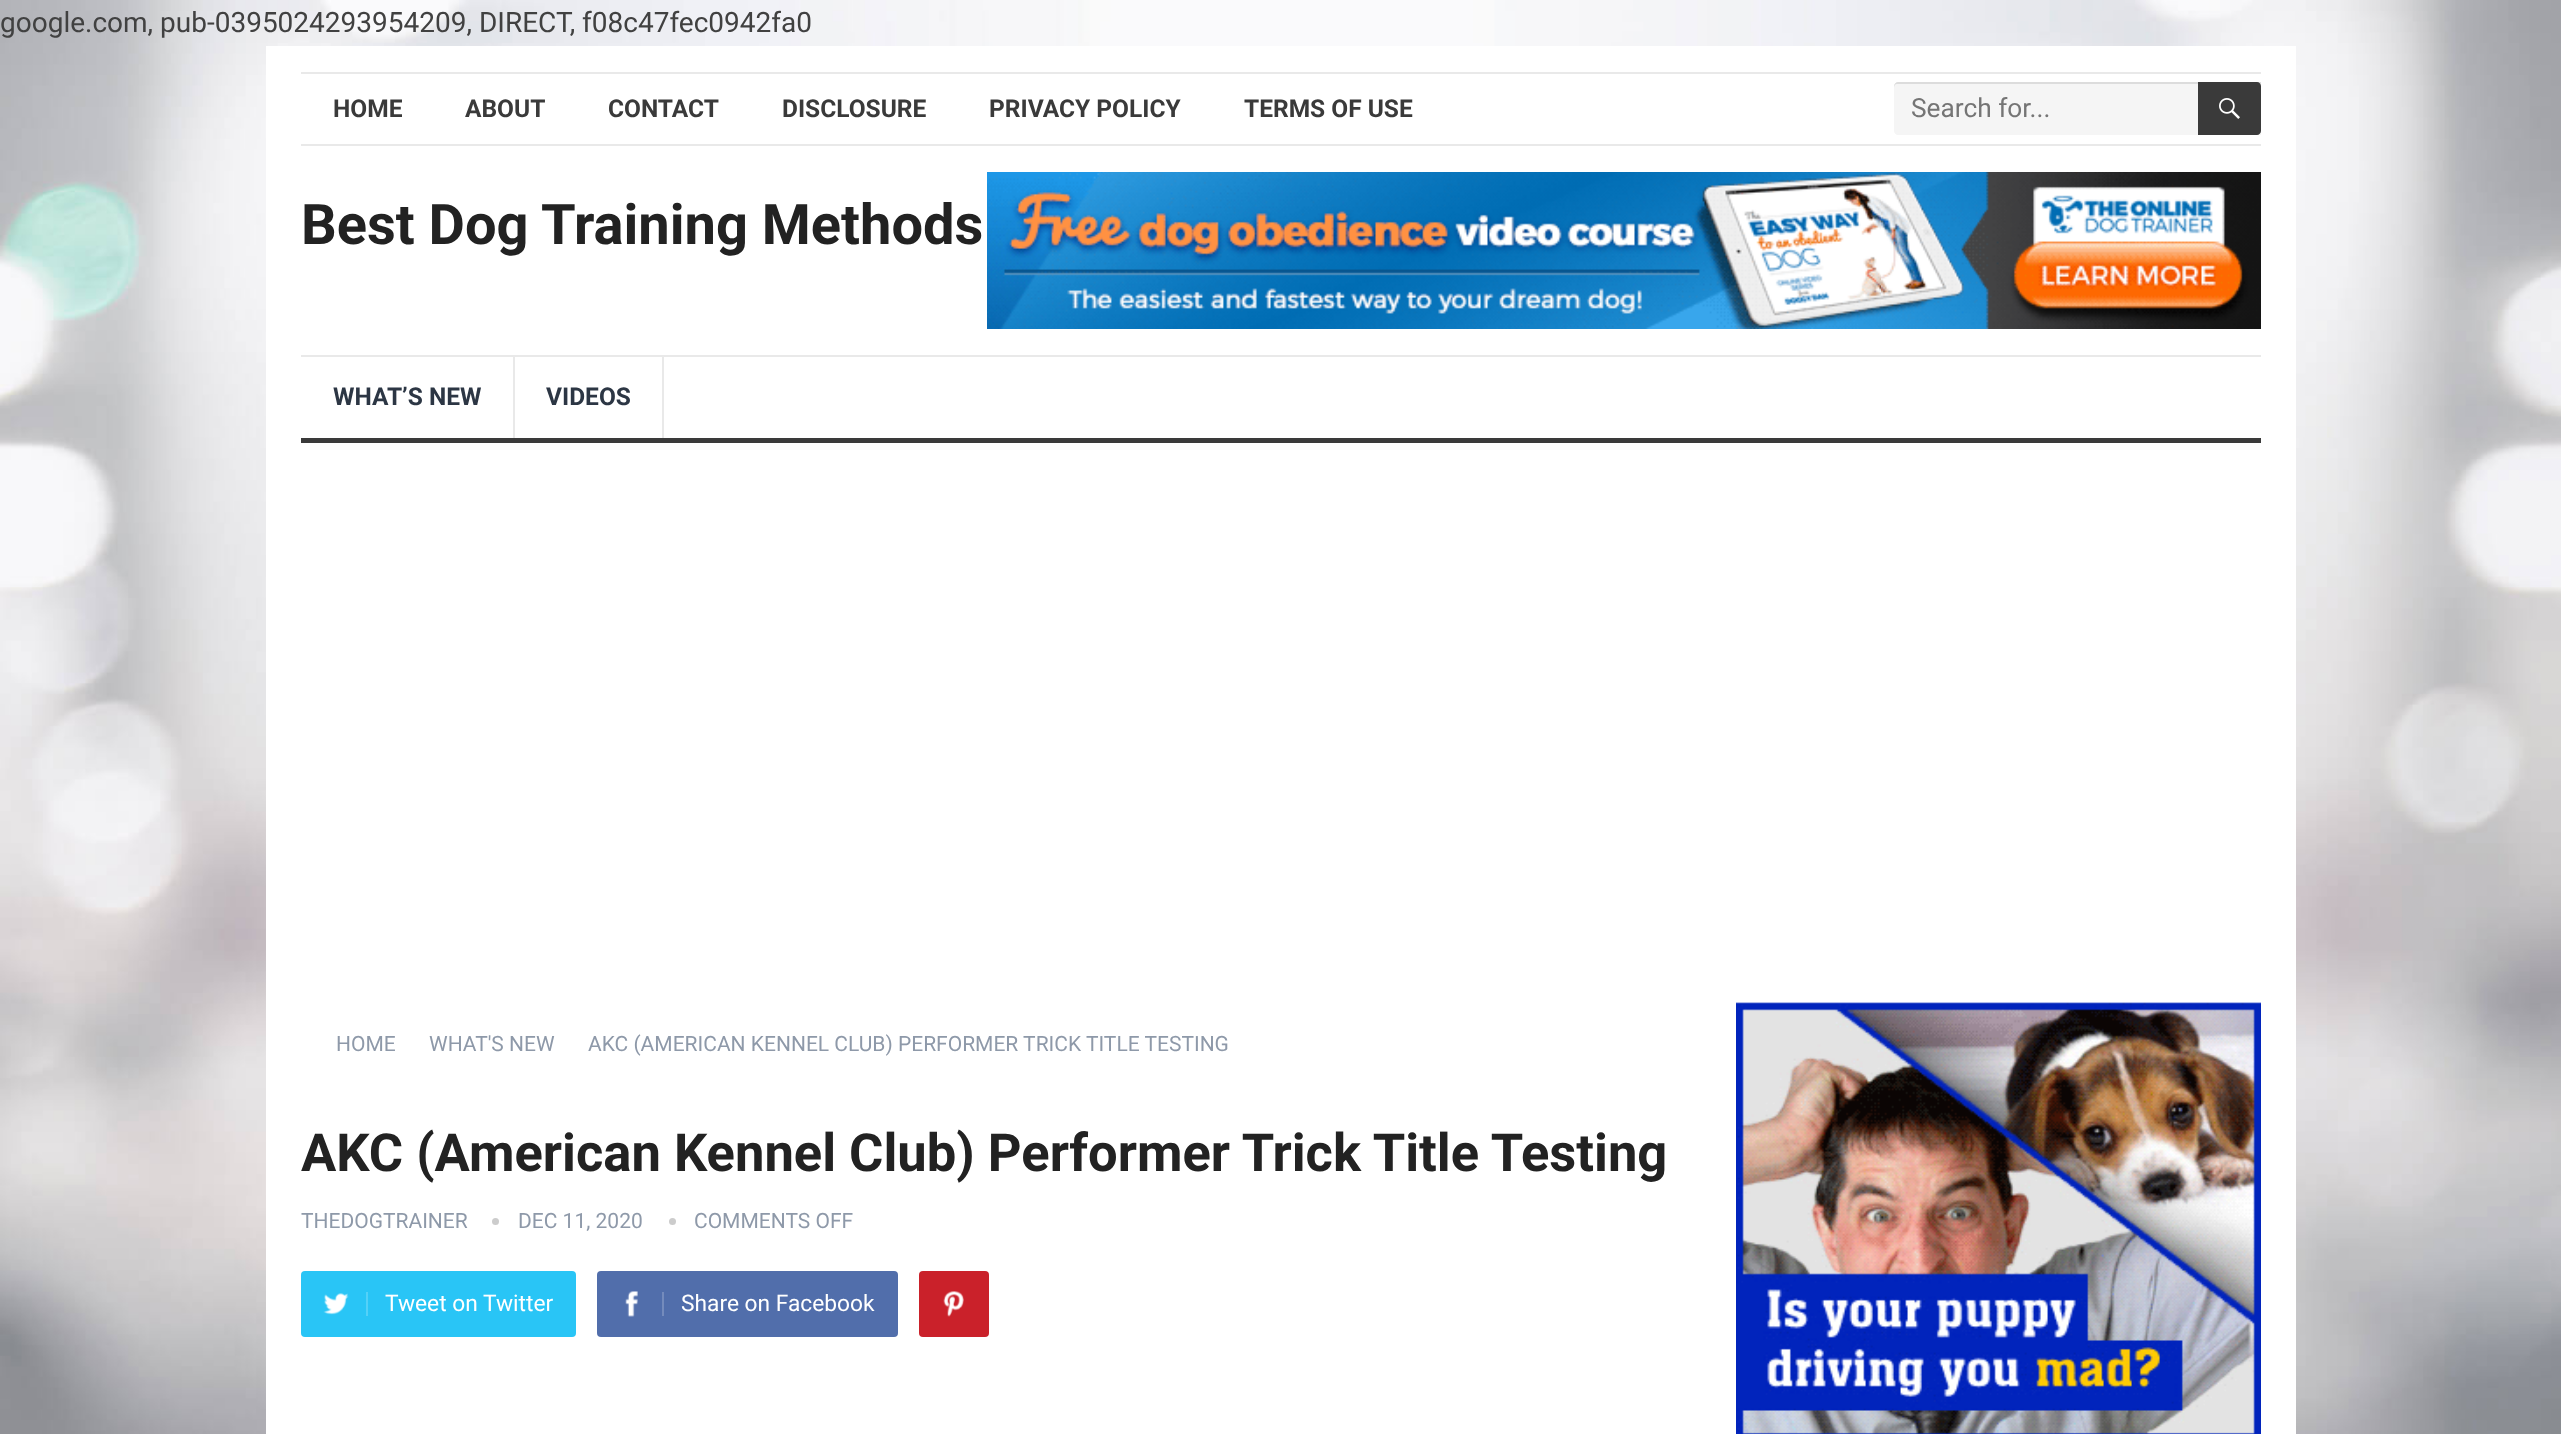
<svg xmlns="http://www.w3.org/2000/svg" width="2561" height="1434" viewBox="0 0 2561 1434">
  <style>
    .t1 { font: 28px Roboto; fill: #414141; }
    .t2 { font: bold 24.5px Roboto; fill: #3a3a3a; }
    .t3 { font: 26.25px Roboto; fill: #757575; }
    .t4 { font: bold 56px Roboto; fill: #222; }
    .t5 { font: bold 24.5px Roboto; fill: #2c3644; }
    .t6 { font: 21px Roboto; fill: #8e99a9; }
    .t7 { font: bold 52.5px Roboto; fill: #222; }
    .t8 { font: 22.75px Roboto; fill: #fff; }
  </style>
  <rect width="100%" height="100%" fill="#fff"/>
  <image x="0" y="0" width="2561" height="1434" href="images/1.png"/>
  <text x="0" y="32" class="t1">google.com, pub-0395024293954209, DIRECT, f08c47fec0942fa0</text>
  <rect x="266" y="46" width="2030" height="1388" fill="#fff"/>
  <rect x="301" y="72" width="1960" height="2" fill="#e9e9e9"/>
  <rect x="301" y="144" width="1960" height="2" fill="#e9e9e9"/>
  <text x="333" y="117" class="t2">HOME</text>
  <text x="465" y="117" class="t2">ABOUT</text>
  <text x="608" y="117" class="t2">CONTACT</text>
  <text x="782" y="117" class="t2">DISCLOSURE</text>
  <text x="989" y="117" class="t2">PRIVACY POLICY</text>
  <text x="1244" y="117" class="t2">TERMS OF USE</text>
  <path d="M1898 82H2261V135H1898C1896 135 1894 133 1894 131V86C1894 84 1896 82 1898 82Z" fill="#f5f5f5"/>
  <path d="M1897 84H2261V82H1898C1896 82 1894 84 1894 86V88C1894 86 1895 84 1897 84Z" fill="#0000001a"/>
  <text x="1911" y="117" class="t3">Search for...</text>
  <path d="M2198 82H2257C2259 82 2261 84 2261 86V131C2261 133 2259 135 2257 135H2198Z" fill="#3a3a3a"/>
  <image x="2219" y="98" width="21" height="21" href="images/2.png"/>
  <text x="301" y="244" class="t4">Best Dog Training Methods</text>
  <image x="987" y="172" width="1274" height="157" href="images/3.png"/>
  <rect x="301" y="355" width="1960" height="2" fill="#e9e9e9"/>
  <rect x="301" y="438" width="1960" height="5" fill="#3a3a3a"/>
  <rect x="513" y="357" width="2" height="81" fill="#e9e9e9"/>
  <text x="333" y="405" class="t5">WHAT’S NEW</text>
  <rect x="662" y="357" width="2" height="81" fill="#e9e9e9"/>
  <text x="546" y="405" class="t5">VIDEOS</text>
  <text x="336" y="1051" class="t6">HOME</text>
  <text x="429" y="1051" class="t6">WHAT'S NEW</text>
  <text x="588" y="1051" class="t6">AKC (AMERICAN KENNEL CLUB) PERFORMER TRICK TITLE TESTING</text>
  <text x="301" y="1171" class="t7">AKC (American Kennel Club) Performer Trick Title Testing</text>
  <text x="301" y="1228" class="t6">THEDOGTRAINER</text>
  <circle cx="495.5" cy="1221.5" r="3.5" fill="#ccc"/>
  <text x="518" y="1228" class="t6">DEC 11, 2020</text>
  <circle cx="672.5" cy="1221.5" r="3.5" fill="#ccc"/>
  <text x="694" y="1228" class="t6">COMMENTS OFF</text>
  <rect x="301" y="1271" width="275" height="66" rx="4" fill="#29c5f6"/>
  <image x="323" y="1293" width="26" height="22" href="images/4.png"/>
  <rect x="366" y="1292" width="2" height="24" fill="#54d1f8"/>
  <text x="385" y="1311" class="t8">Tweet on Twitter</text>
  <rect x="597" y="1271" width="301" height="66" rx="4" fill="#516eab"/>
  <image x="625" y="1291" width="13" height="26" href="images/5.png"/>
  <rect x="662" y="1292" width="2" height="24" fill="#748bbc"/>
  <text x="681" y="1311" class="t8">Share on Facebook</text>
  <rect x="919" y="1271" width="70" height="66" rx="4" fill="#ca212a"/>
  <image x="943" y="1291" width="21" height="26" href="images/6.png"/>
  <image x="1736" y="1002" width="525" height="432" href="images/7.png"/>
</svg>
